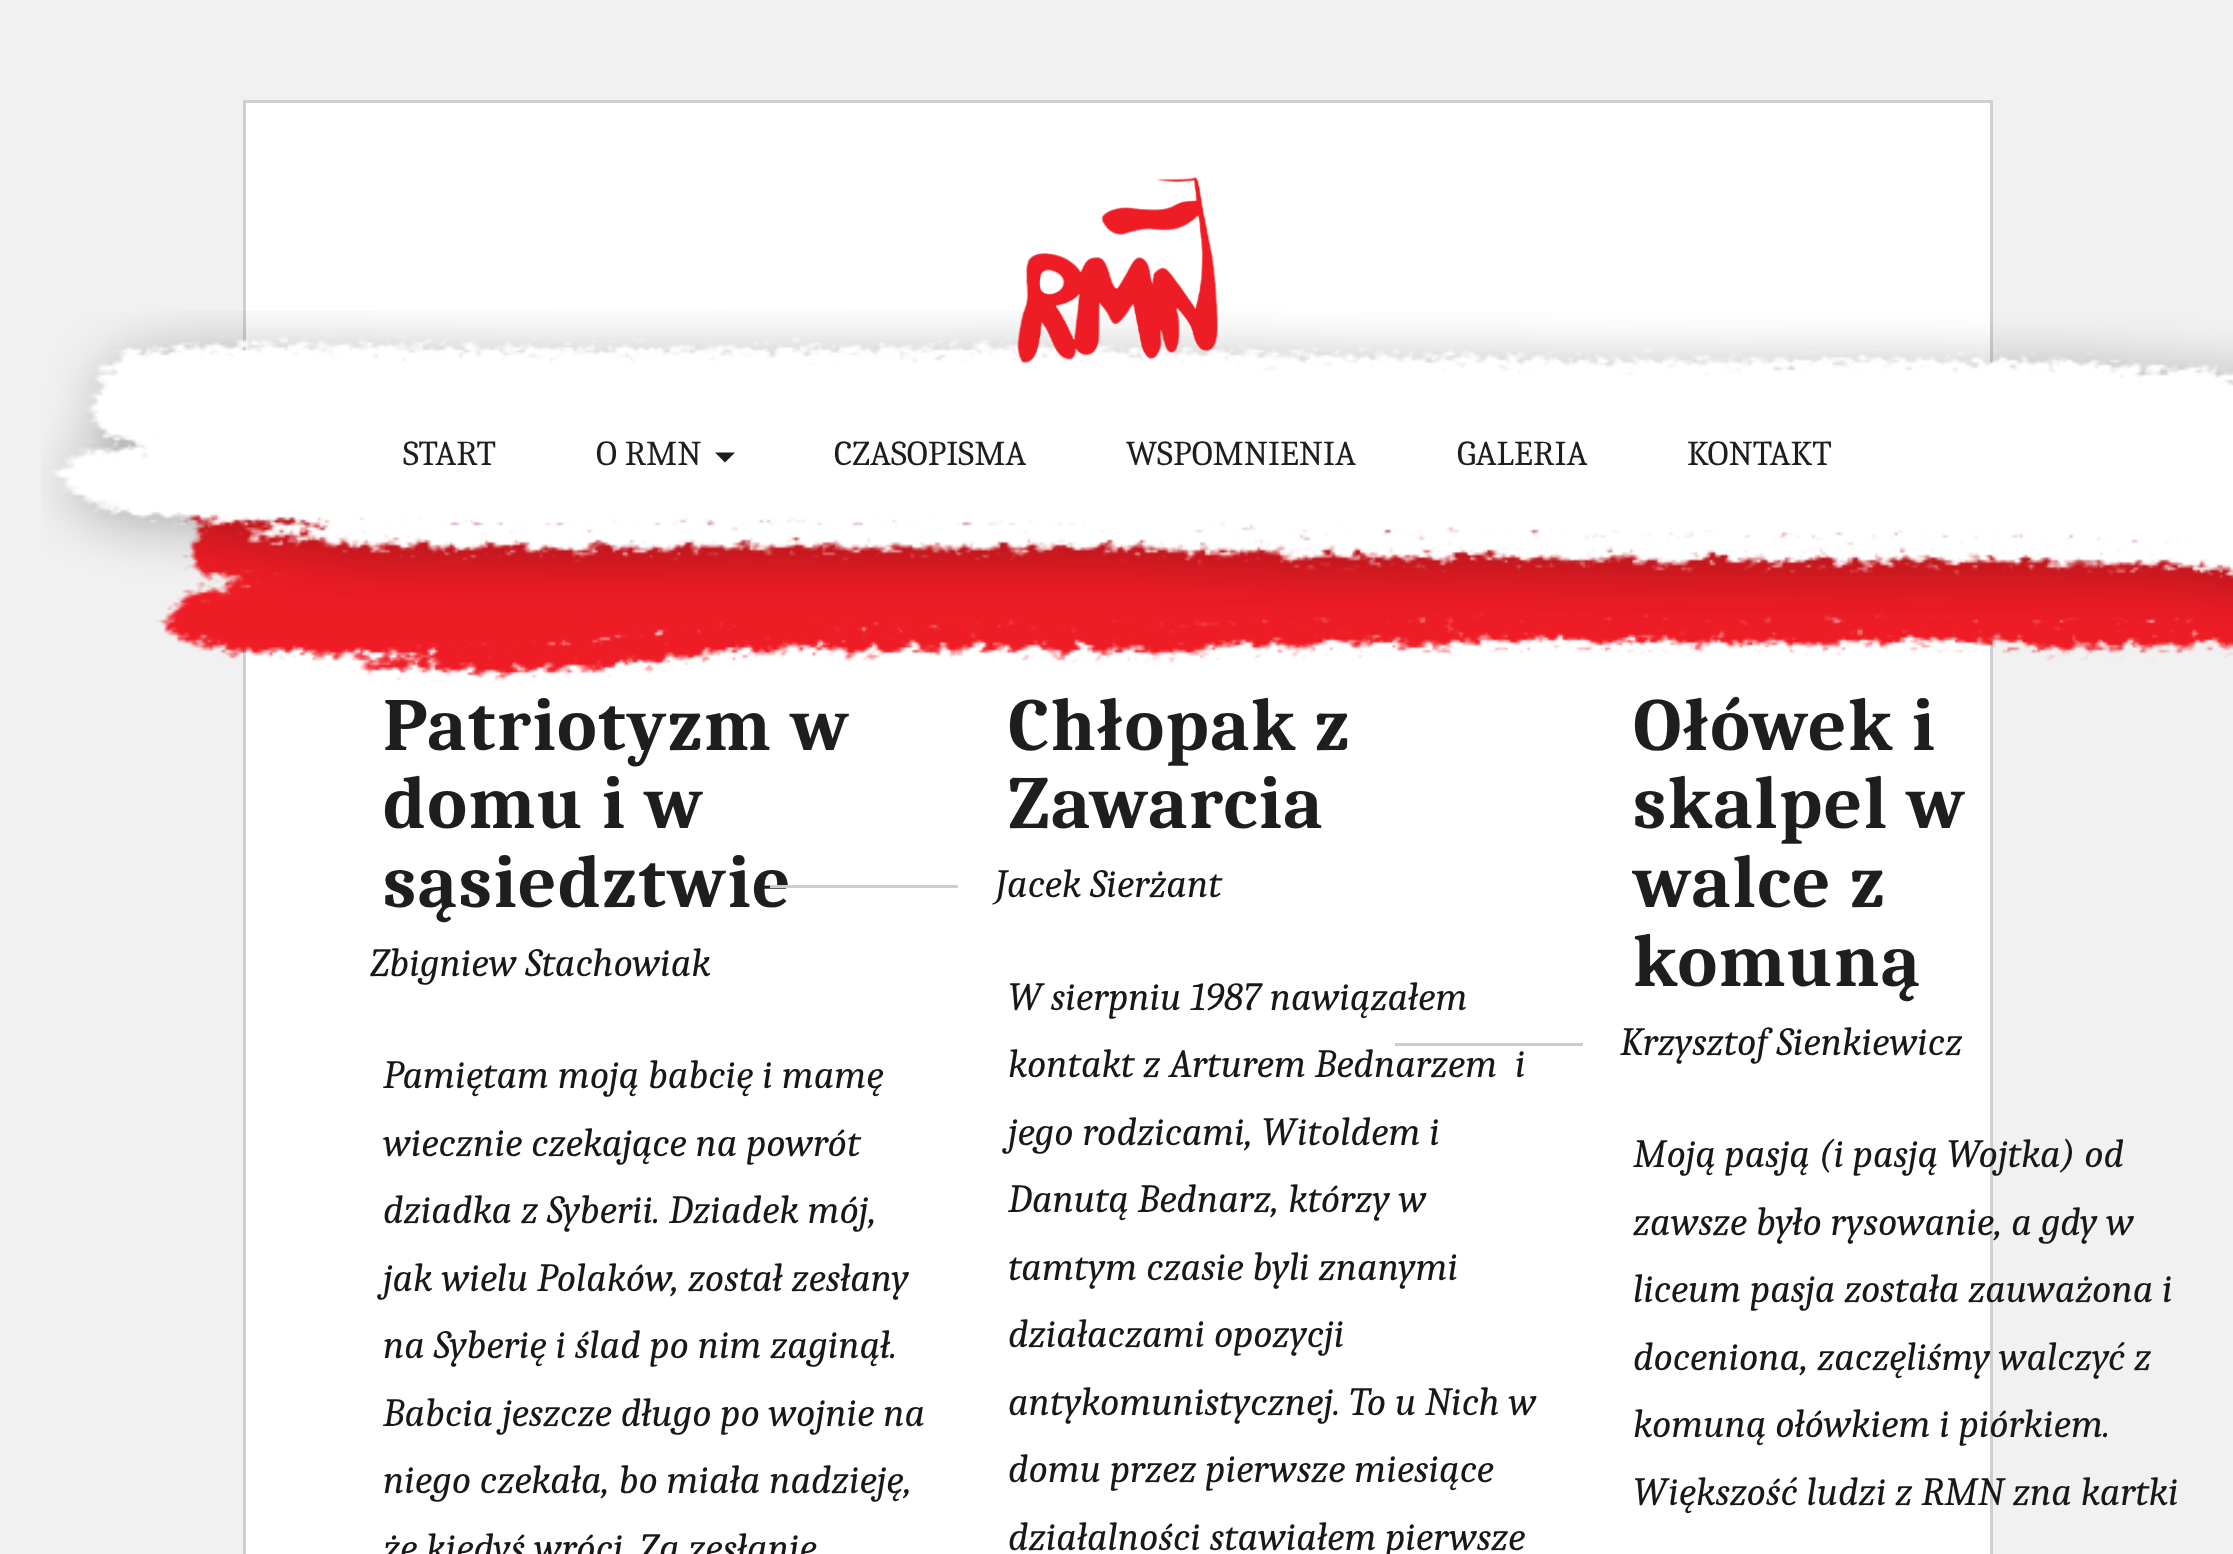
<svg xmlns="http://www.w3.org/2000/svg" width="2233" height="1554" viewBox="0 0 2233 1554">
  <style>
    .t1 { font: 35px Caladea; fill: #1e1e1e; }
    .t2 { font: bold 75px Caladea; letter-spacing: 1.5px; fill: #1e1e1e; }
    .t3 { font: italic 40px Caladea; fill: #181818; }
  </style>
  <rect width="100%" height="100%" fill="#f1f1f1"/>
  <rect x="244.5" y="101.5" width="1747" height="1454" fill="#fff" stroke="#ccd0d4" stroke-width="3"/>
  <image x="41" y="311" width="2192" height="371" href="images/2.png"/>
  <image x="1017" y="177" width="201" height="186" href="images/1.png"/>
  <text x="403" y="465" class="t1">START</text>
  <text x="596" y="465" class="t1">O RMN</text>
  <path d="M715 452.5H735L725 462.5Z" fill="#1e1e1e"/>
  <text x="834" y="465" class="t1">CZASOPISMA</text>
  <text x="1126" y="465" class="t1">WSPOMNIENIA</text>
  <text x="1457" y="465" class="t1">GALERIA</text>
  <text x="1687" y="465" class="t1">KONTAKT</text>
  <text x="383" y="750" class="t2">Patriotyzm w</text>
  <text x="383" y="828" class="t2">domu i w</text>
  <text x="383" y="907" class="t2">sąsiedztwie</text>
  <text x="370" y="976" class="t3">Zbigniew Stachowiak</text>
  <text x="383" y="1088" class="t3">Pamiętam moją babcię i mamę</text>
  <text x="383" y="1156" class="t3">wiecznie czekające na powrót</text>
  <text x="383" y="1223" class="t3">dziadka z Syberii. Dziadek mój,</text>
  <text x="383" y="1291" class="t3">jak wielu Polaków, został zesłany</text>
  <text x="383" y="1358" class="t3">na Syberię i ślad po nim zaginął.</text>
  <text x="383" y="1426" class="t3">Babcia jeszcze długo po wojnie na</text>
  <text x="383" y="1493" class="t3">niego czekała, bo miała nadzieję,</text>
  <text x="383" y="1561" class="t3">że kiedyś wróci. Za zesłanie</text>
  <text x="1008" y="750" class="t2">Chłopak z</text>
  <text x="1008" y="828" class="t2">Zawarcia</text>
  <rect x="770" y="885" width="188" height="3" fill="#cdcdcd"/>
  <text x="995" y="897" class="t3">Jacek Sierżant</text>
  <text x="1008" y="1010" class="t3">W sierpniu 1987 nawiązałem</text>
  <text x="1008" y="1077" class="t3" xml:space="preserve">kontakt z Arturem Bednarzem  i</text>
  <text x="1008" y="1145" class="t3">jego rodzicami, Witoldem i</text>
  <text x="1008" y="1212" class="t3">Danutą Bednarz, którzy w</text>
  <text x="1008" y="1280" class="t3">tamtym czasie byli znanymi</text>
  <text x="1008" y="1347" class="t3">działaczami opozycji</text>
  <text x="1008" y="1415" class="t3">antykomunistycznej. To u Nich w</text>
  <text x="1008" y="1482" class="t3">domu przez pierwsze miesiące</text>
  <text x="1008" y="1550" class="t3">działalności stawiałem pierwsze</text>
  <text x="1633" y="750" class="t2">Ołówek i</text>
  <text x="1633" y="828" class="t2">skalpel w</text>
  <text x="1633" y="907" class="t2">walce z</text>
  <text x="1633" y="986" class="t2">komuną</text>
  <rect x="1395" y="1043" width="188" height="3" fill="#cdcdcd"/>
  <text x="1620" y="1055" class="t3">Krzysztof Sienkiewicz</text>
  <text x="1633" y="1167" class="t3">Moją pasją (i pasją Wojtka) od</text>
  <text x="1633" y="1235" class="t3">zawsze było rysowanie, a gdy w</text>
  <text x="1633" y="1302" class="t3">liceum pasja została zauważona i</text>
  <text x="1633" y="1370" class="t3">doceniona, zaczęliśmy walczyć z</text>
  <text x="1633" y="1437" class="t3">komuną ołówkiem i piórkiem.</text>
  <text x="1633" y="1505" class="t3">Większość ludzi z RMN zna kartki</text>
</svg>
